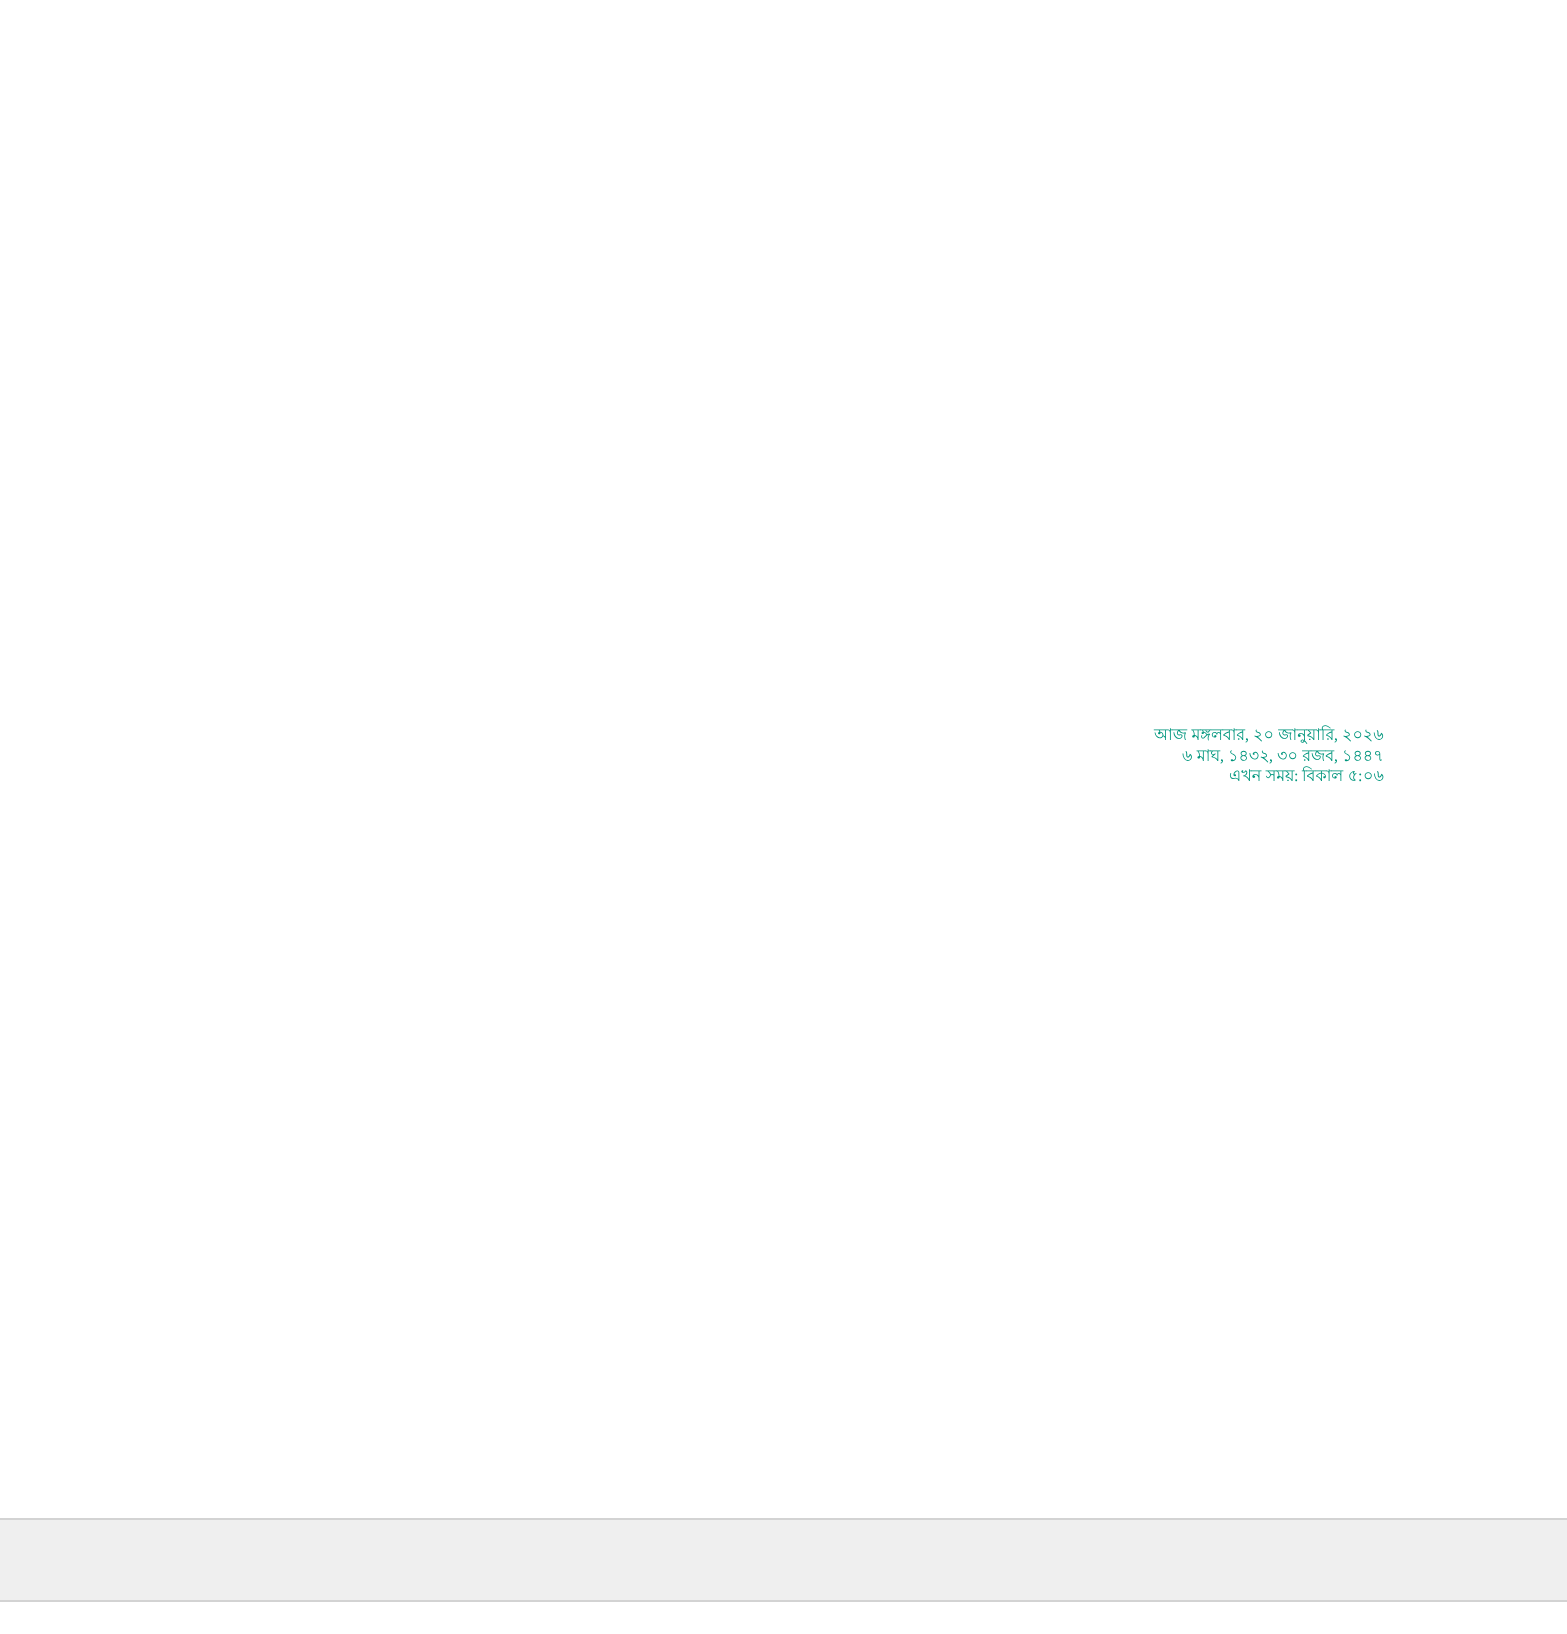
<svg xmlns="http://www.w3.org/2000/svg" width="1567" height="1634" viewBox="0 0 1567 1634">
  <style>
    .t1 { font: 16px Lohit Bengali; fill: #00967d; }
    .t2 { font: 16px Liberation Serif; fill: #00967d; }
  </style>
  <rect width="100%" height="100%" fill="#fff"/>
  <text x="1154" y="740" class="t1">আজ মঙ্গলবার</text>
  <text x="1245" y="740" class="t2">,</text>
  <text x="1253" y="740" class="t1">২০ জানুয়ারি</text>
  <text x="1334" y="740" class="t2">,</text>
  <text x="1342" y="740" class="t1">২০২৬</text>
  <text x="1182" y="761" class="t1">৬ মাঘ</text>
  <text x="1220" y="761" class="t2">,</text>
  <text x="1228" y="761" class="t1">১৪৩২</text>
  <text x="1269" y="761" class="t2">,</text>
  <text x="1277" y="761" class="t1">৩০ রজব</text>
  <text x="1334" y="761" class="t2">,</text>
  <text x="1342" y="761" class="t1">১৪৪৭</text>
  <text x="1229" y="781" class="t1">এখন সময়</text>
  <text x="1294" y="781" class="t2">:</text>
  <text x="1302" y="781" class="t1">বিকাল ৫</text>
  <text x="1358" y="781" class="t2">:</text>
  <text x="1363" y="781" class="t1">০৬</text>
  <rect x="0" y="1520" width="1567" height="80" fill="#efefef"/>
  <rect x="0" y="1518" width="1567" height="2" fill="#d3d3d3"/>
  <rect x="0" y="1600" width="1567" height="2" fill="#d3d3d3"/>
</svg>
